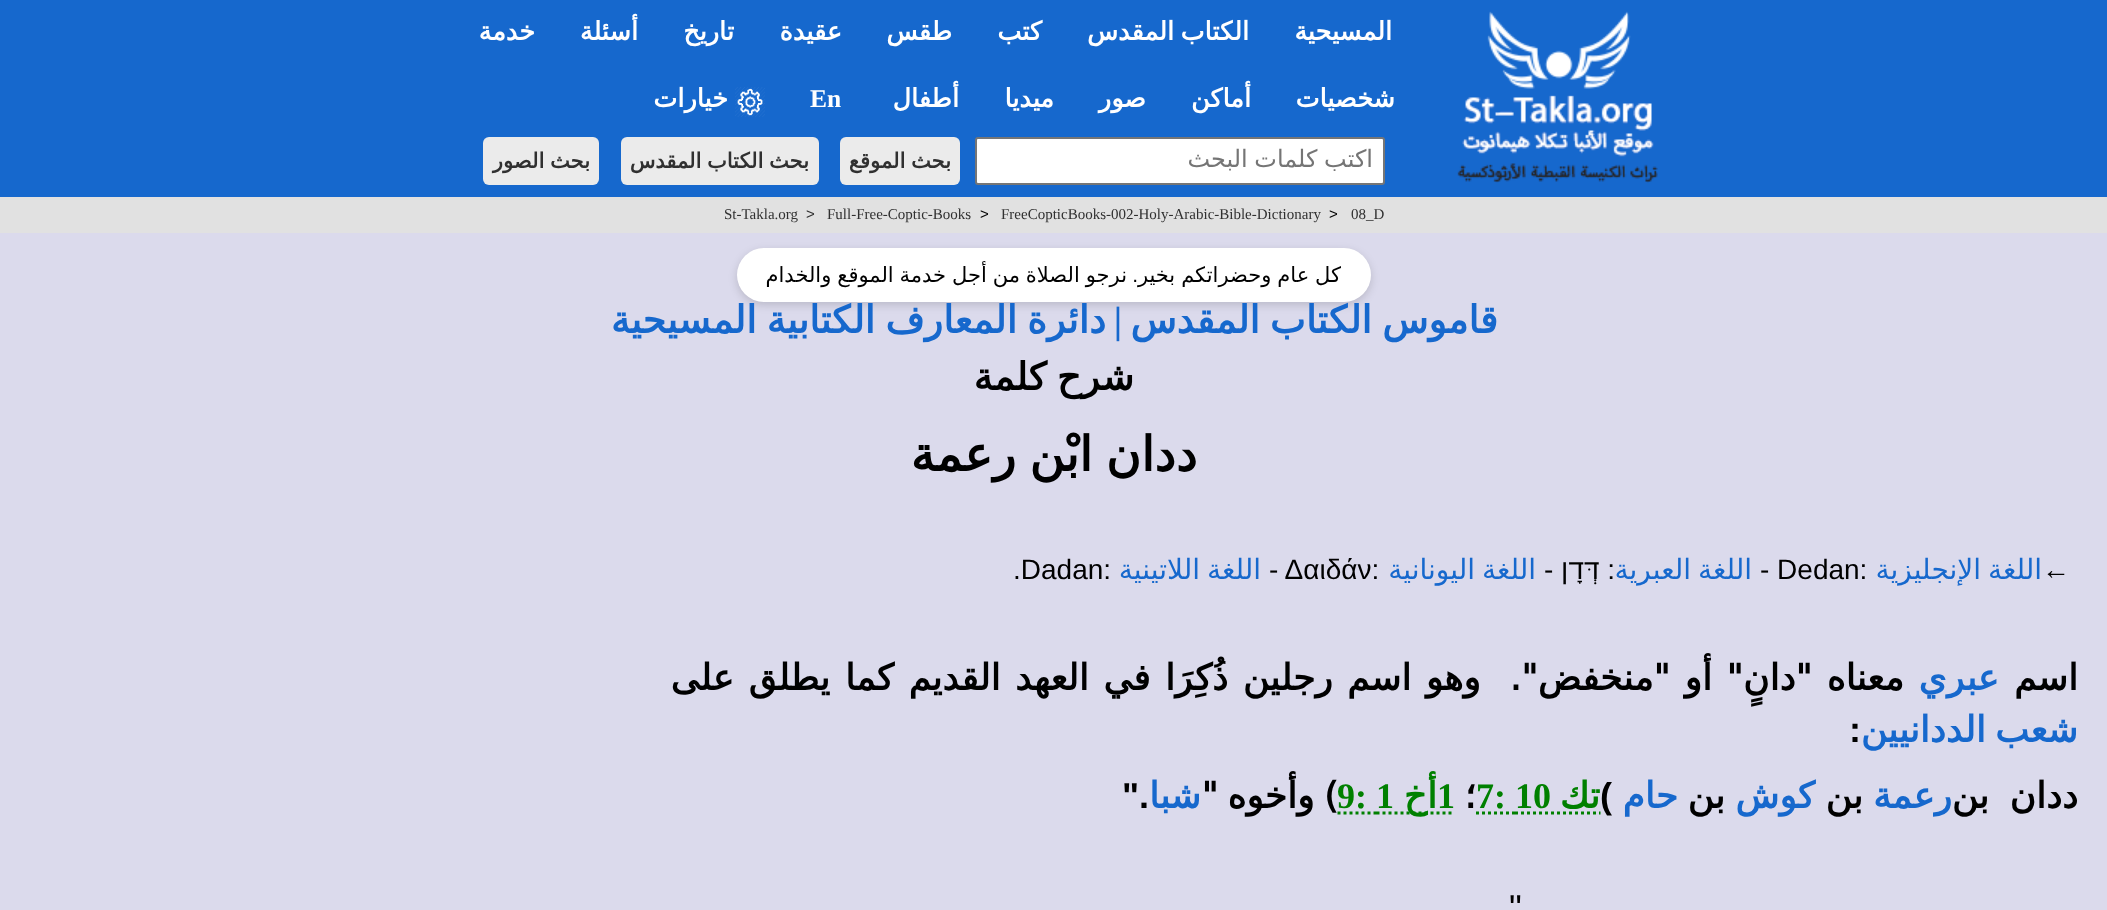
<svg xmlns="http://www.w3.org/2000/svg" width="2107" height="910" viewBox="0 0 2107 910">
  <style>
    .t1 { font: bold 25.5px DejaVu Sans; direction: rtl; fill: #fff; }
    .t2 { font: bold 25.5px Liberation Serif; fill: #fff; }
    .t3 { font: 24px DejaVu Sans; direction: rtl; fill: #757575; }
    .t4 { font: bold 21px DejaVu Sans; direction: rtl; fill: #303030; }
    .t5 { font: 15px Liberation Serif; fill: #303030; }
    .t6 { font: 15px Liberation Sans; fill: #000; }
    .t7 { font: 15px Liberation Sans; fill: #303030; }
    .t8 { font: 21px DejaVu Sans; direction: rtl; fill: #000; }
    .t9 { font: 21px Liberation Sans; direction: rtl; fill: #000; }
    .t10 { font: bold 38px DejaVu Sans; direction: rtl; fill: #1668cd; }
    .t11 { font: bold 38px Liberation Serif; direction: rtl; fill: #1668cd; }
    .t12 { font: bold 38px DejaVu Sans; direction: rtl; fill: #000; }
    .t13 { font: bold 48px DejaVu Sans; direction: rtl; fill: #000; }
    .t14 { font: 28px Liberation Sans; fill: #000; }
    .t15 { font: 28px DejaVu Sans; direction: rtl; fill: #1668cd; }
    .t16 { font: 28px Liberation Sans; direction: rtl; fill: #000; }
    .t17 { font: bold 36px DejaVu Sans; direction: rtl; fill: #000; }
    .t18 { font: bold 36px DejaVu Sans; direction: rtl; fill: #1668cd; }
    .t19 { font: bold 36px Liberation Sans; fill: #000; }
    .t20 { font: bold 36px DejaVu Sans; direction: rtl; fill: #008000; }
    .t21 { font: bold 36px Liberation Serif; fill: #008000; }
    .t22 { font: 36px Liberation Sans; fill: #000; }
  </style>
  <rect width="100%" height="100%" fill="#dbdaec"/>
  <rect x="0" y="0" width="2107" height="197" fill="#1668cd"/>
  <image x="1457" y="11" width="201" height="172" href="images/1.png"/>
  <text x="1392" y="40" class="t1">المسيحية</text>
  <text x="1249" y="40" class="t1">الكتاب</text>
  <text x="1174" y="40" class="t1">المقدس</text>
  <text x="1042" y="40" class="t1">كتب</text>
  <text x="952" y="40" class="t1">طقس</text>
  <text x="842" y="40" class="t1">عقيدة</text>
  <text x="734" y="40" class="t1">تاريخ</text>
  <text x="638" y="40" class="t1">أسئلة</text>
  <text x="535" y="40" class="t1">خدمة</text>
  <text x="1395" y="107" class="t1">شخصيات</text>
  <text x="1251" y="107" class="t1">أماكن</text>
  <text x="1146" y="107" class="t1">صور</text>
  <text x="1054" y="107" class="t1">ميديا</text>
  <text x="959" y="107" class="t1">أطفال</text>
  <text x="810" y="107" class="t2">En</text>
  <image x="735" y="87" width="30" height="30" href="images/2.png"/>
  <text x="728" y="107" class="t1">خيارات</text>
  <rect x="976" y="138" width="408" height="46" rx="2" fill="#fff" stroke="#767676" stroke-width="2"/>
  <text x="1373" y="167" word-spacing="-1" class="t3">اكتب كلمات البحث</text>
  <rect x="840" y="137" width="120" height="48" rx="6" fill="#ebebeb"/>
  <text x="951" y="168" word-spacing="-1" class="t4">بحث الموقع</text>
  <rect x="621" y="137" width="198" height="48" rx="6" fill="#ebebeb"/>
  <text x="809" y="168" word-spacing="-1" class="t4">بحث الكتاب المقدس</text>
  <rect x="483" y="137" width="116" height="48" rx="6" fill="#ebebeb"/>
  <text x="590" y="168" word-spacing="-1" class="t4">بحث الصور</text>
  <rect x="0" y="197" width="2107" height="36" fill="#e1e1e1"/>
  <text x="1351" y="219" class="t5">08_D</text>
  <text x="1329" y="219" class="t6">&gt;</text>
  <text x="1001" y="219" class="t5">FreeCopticBooks-002-Holy-Arabic-Bible-Dictionary</text>
  <text x="980" y="219" class="t6">&gt;</text>
  <text x="827" y="219" class="t5">Full-Free-Coptic-Books</text>
  <text x="806" y="219" class="t7">&gt;</text>
  <text x="724" y="219" class="t5">St-Takla.org</text>
  <rect x="737" y="251" width="634" height="54" rx="27" fill="#00000026" filter="blur(4.5px)"/>
  <rect x="737" y="248" width="634" height="54" rx="27" fill="#fff"/>
  <text x="1341" y="282" word-spacing="-0.75" class="t8">كل عام وحضراتكم بخير</text>
  <text x="1138" y="282" class="t9">.</text>
  <text x="1127" y="282" word-spacing="-0.75" class="t8">نرجو الصلاة من أجل خدمة الموقع والخدام</text>
  <text x="1498" y="333" word-spacing="-2" class="t10">قاموس الكتاب المقدس</text>
  <text x="1122" y="333" class="t11">|</text>
  <text x="1106" y="333" word-spacing="-2" class="t10">دائرة المعارف الكتابية المسيحية</text>
  <text x="1134" y="390" word-spacing="-2" class="t12">شرح كلمة</text>
  <text x="1197" y="471" word-spacing="-2" class="t13">ددان ابْن رعمة</text>
  <text x="2042" y="579" class="t14">←</text>
  <text x="2042" y="579" word-spacing="-2" class="t15">اللغة الإنجليزية</text>
  <text x="1760" y="579" class="t14">- Dedan:</text>
  <text x="1752" y="579" word-spacing="-2" class="t15">اللغة العبرية</text>
  <text x="1615" y="579" class="t16">: דְּדָן -</text>
  <text x="1536" y="579" word-spacing="-2" class="t15">اللغة اليونانية</text>
  <text x="1269" y="579" class="t14">- Δαιδάν:</text>
  <text x="1261" y="579" word-spacing="-2" class="t15">اللغة اللاتينية</text>
  <text x="1013" y="579" class="t14">.Dadan:</text>
  <text x="2078" y="690" class="t17">اسم</text>
  <text x="1999" y="690" class="t18">عبري</text>
  <text x="1904" y="690" word-spacing="3.1" class="t17" xml:space="preserve">معناه "دانٍ" أو "منخفض".  وهو اسم رجلين ذُكِرَا في العهد القديم كما</text>
  <text x="830" y="690" word-spacing="3.1" class="t17">يطلق على</text>
  <text x="2078" y="742" word-spacing="-2" class="t18">شعب الددانيين</text>
  <text x="1849" y="742" class="t19">:</text>
  <text x="2078" y="808" word-spacing="9" class="t17">ددان بن</text>
  <text x="1952" y="808" class="t18">رعمة</text>
  <text x="1863" y="808" class="t17">بن</text>
  <text x="1815" y="808" class="t18">كوش</text>
  <text x="1725" y="808" class="t17">بن</text>
  <text x="1678" y="808" class="t18">حام</text>
  <text x="1600" y="808" class="t19">(</text>
  <path d="M1551 813H1600.5" fill="none" stroke="#008000" stroke-width="3" stroke-dasharray="3 3"/>
  <text x="1600" y="808" class="t20">تك</text>
  <text x="1476" y="808" class="t21">7: 10</text>
  <path d="M1476 813H1479M1482 813H1485M1488 813H1491" fill="none" stroke="#008000" stroke-width="3"/>
  <path d="M1494 813H1497M1500 813H1503M1506 813H1509M1512 813H1515" fill="none" stroke="#008000" stroke-width="3"/>
  <path d="M1515 813H1551" fill="none" stroke="#008000" stroke-width="3" stroke-dasharray="3 3"/>
  <text x="1476" y="808" class="t17">؛</text>
  <text x="1437" y="808" class="t21">1</text>
  <path d="M1436.5 813H1439.5M1442.5 813H1445.5M1448.5 813H1451.5" fill="none" stroke="#008000" stroke-width="3"/>
  <path d="M1394.5 813H1436.5" fill="none" stroke="#008000" stroke-width="3" stroke-dasharray="3 3"/>
  <text x="1437" y="808" class="t20">أخ</text>
  <text x="1337" y="808" class="t21">9: 1</text>
  <path d="M1337.5 813H1340.5M1343.5 813H1346.5M1349.5 813H1352.5" fill="none" stroke="#008000" stroke-width="3"/>
  <path d="M1355.5 813H1358.5M1361.5 813H1364.5M1367.5 813H1370.5M1373.5 813H1376.5M1376.5 813H1379.5M1382.5 813H1385.5M1388.5 813H1391.5" fill="none" stroke="#008000" stroke-width="3"/>
  <text x="1338" y="808" word-spacing="-2" class="t17">) وأخوه "</text>
  <text x="1201" y="808" class="t18">شبا</text>
  <text x="1122" y="808" class="t19">".</text>
  <text x="1509" y="920" class="t22">"</text>
</svg>
